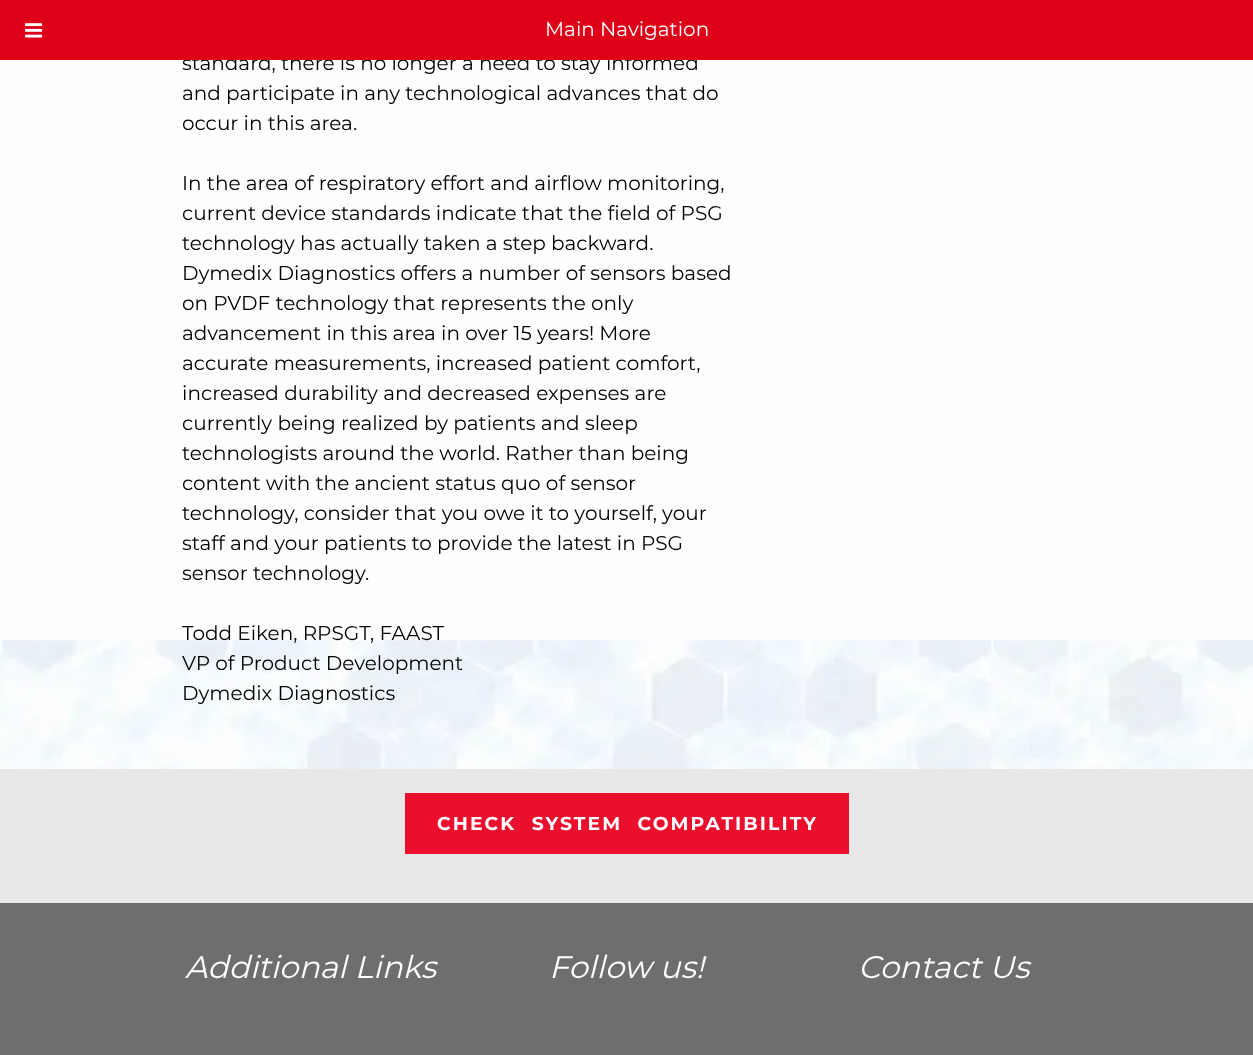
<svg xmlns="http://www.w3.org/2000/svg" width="1253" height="1055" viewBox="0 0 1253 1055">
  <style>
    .t1 { font: 100 20px Montserrat; fill: #000; }
    .t2 { font: 100 20px Montserrat; fill: #fff; }
    .t3 { font: bold 18.75px Montserrat; letter-spacing: 2.1px; fill: #fff; }
    .t4 { font: italic 100 31.25px Montserrat; fill: #fff; }
  </style>
  <rect width="100%" height="100%" fill="#fff"/>
  <image x="0" y="60" width="1253" height="709" href="images/2.png"/>
  <text x="182" y="70" class="t1">standard, there is no longer a need to stay informed</text>
  <rect x="0" y="0" width="1253" height="60" fill="#de0018"/>
  <image x="25" y="23" width="18" height="15" href="images/1.png"/>
  <text x="545" y="36" class="t2">Main Navigation</text>
  <text x="182" y="100" class="t1">and participate in any technological advances that do</text>
  <text x="182" y="130" class="t1">occur in this area.</text>
  <text x="182" y="190" class="t1">In the area of respiratory effort and airflow monitoring,</text>
  <text x="182" y="220" class="t1">current device standards indicate that the field of PSG</text>
  <text x="182" y="250" class="t1">technology has actually taken a step backward.</text>
  <text x="182" y="280" class="t1">Dymedix Diagnostics offers a number of sensors based</text>
  <text x="182" y="310" class="t1">on PVDF technology that represents the only</text>
  <text x="182" y="340" class="t1">advancement in this area in over 15 years! More</text>
  <text x="182" y="370" class="t1">accurate measurements, increased patient comfort,</text>
  <text x="182" y="400" class="t1">increased durability and decreased expenses are</text>
  <text x="182" y="430" class="t1">currently being realized by patients and sleep</text>
  <text x="182" y="460" class="t1">technologists around the world. Rather than being</text>
  <text x="182" y="490" class="t1">content with the ancient status quo of sensor</text>
  <text x="182" y="520" class="t1">technology, consider that you owe it to yourself, your</text>
  <text x="182" y="550" class="t1">staff and your patients to provide the latest in PSG</text>
  <text x="182" y="580" class="t1">sensor technology.</text>
  <text x="182" y="640" class="t1">Todd Eiken, RPSGT, FAAST</text>
  <text x="182" y="670" class="t1">VP of Product Development</text>
  <text x="182" y="700" class="t1">Dymedix Diagnostics</text>
  <rect x="0" y="769" width="1253" height="134" fill="#e8e8e8"/>
  <rect x="405" y="793" width="444" height="61" fill="#eb0f2d"/>
  <text x="437" y="830" word-spacing="8" class="t3">CHECK SYSTEM COMPATIBILITY</text>
  <rect x="0" y="903" width="1253" height="152" fill="#6e6e6e"/>
  <text x="185" y="978" class="t4">Additional Links</text>
  <text x="549" y="978" class="t4">Follow us!</text>
  <text x="858" y="978" class="t4">Contact Us</text>
</svg>
